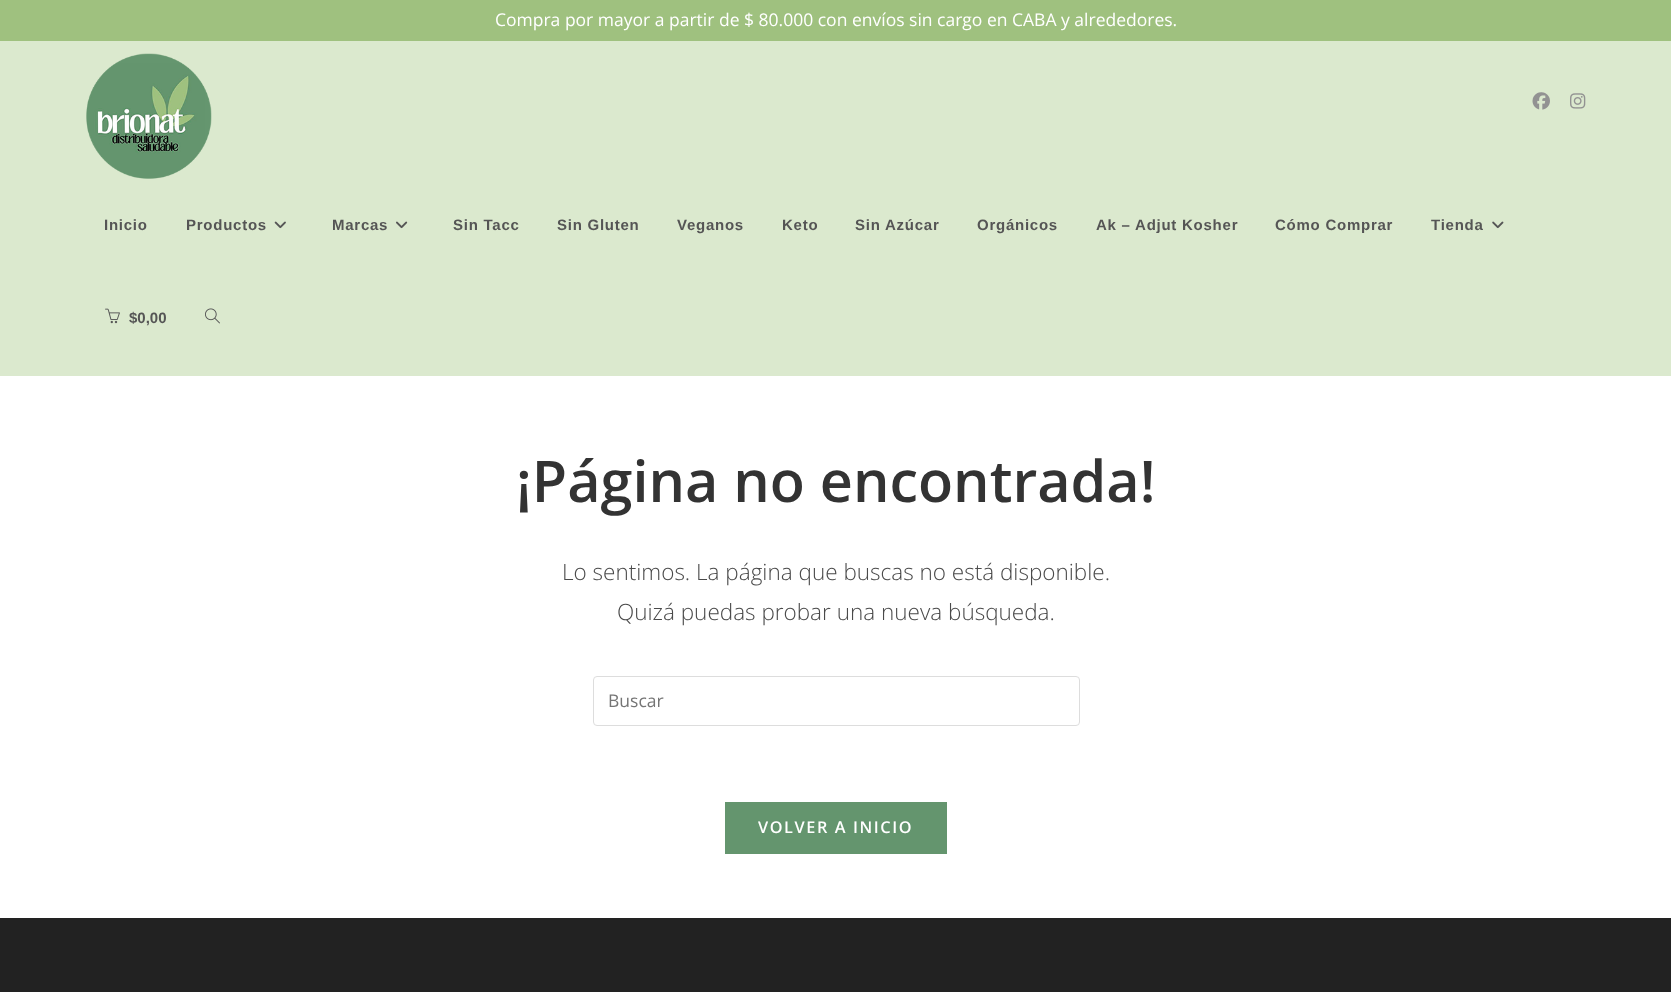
<svg xmlns="http://www.w3.org/2000/svg" width="1671" height="992" viewBox="0 0 1671 992">
  <style>
    .t1 { font: 17.5px Open Sans; fill: #fff; }
    .t2 { font: bold 15px Liberation Sans; letter-spacing: 0.75px; fill: #555; }
    .t3 { font: bold 15px Liberation Sans; fill: #555; }
    .t4 { font: 600 57.5px Open Sans; fill: #333; }
    .t5 { font: 300 22.5px Open Sans; fill: #4a4a4a; }
    .t6 { font: 17.5px Open Sans; fill: #757575; }
    .t7 { font: 600 16.25px Open Sans; letter-spacing: 1.6px; fill: #fff; }
  </style>
  <rect width="100%" height="100%" fill="#fff"/>
  <rect x="0" y="0" width="1671" height="41" fill="#9fc17f"/>
  <text x="495" y="26" class="t1">Compra por mayor a partir de $ 80.000 con envíos sin cargo en CABA y alrededores.</text>
  <rect x="0" y="41" width="1671" height="335" fill="#dbe9ce"/>
  <image x="86" y="53" width="126" height="126" href="images/1.png"/>
  <image x="1532" y="92" width="18" height="18" href="images/2.png"/>
  <image x="1570" y="93" width="16" height="16" href="images/3.png"/>
  <text x="104" y="230" class="t2">Inicio</text>
  <text x="186" y="230" class="t2">Productos</text>
  <image x="274" y="221" width="12" height="8" href="images/4.png"/>
  <text x="332" y="230" class="t2">Marcas</text>
  <image x="396" y="221" width="12" height="8" href="images/5.png"/>
  <text x="453" y="230" class="t2">Sin Tacc</text>
  <text x="557" y="230" class="t2">Sin Gluten</text>
  <text x="677" y="230" class="t2">Veganos</text>
  <text x="782" y="230" class="t2">Keto</text>
  <text x="855" y="230" class="t2">Sin Azúcar</text>
  <text x="977" y="230" class="t2">Orgánicos</text>
  <text x="1096" y="230" class="t2">Ak – Adjut Kosher</text>
  <text x="1275" y="230" class="t2">Cómo Comprar</text>
  <text x="1431" y="230" class="t2">Tienda</text>
  <image x="1492" y="221" width="12" height="8" href="images/6.png"/>
  <image x="105" y="308" width="15" height="16" href="images/7.png"/>
  <text x="129" y="323" class="t3">$0,00</text>
  <image x="205" y="308" width="15" height="16" href="images/8.png"/>
  <text x="516" y="502" class="t4">¡Página no encontrada!</text>
  <text x="562" y="580" class="t5">Lo sentimos. La página que buscas no está disponible.</text>
  <text x="617" y="620" class="t5">Quizá puedas probar una nueva búsqueda.</text>
  <rect x="593.5" y="676.5" width="486" height="49" rx="3.5" fill="none" stroke="#ddd"/>
  <text x="608" y="707" class="t6">Buscar</text>
  <rect x="725" y="802" width="222" height="52" fill="#64956e"/>
  <text x="758" y="833" class="t7">VOLVER A INICIO</text>
  <rect x="0" y="918" width="1671" height="74" fill="#222"/>
</svg>
